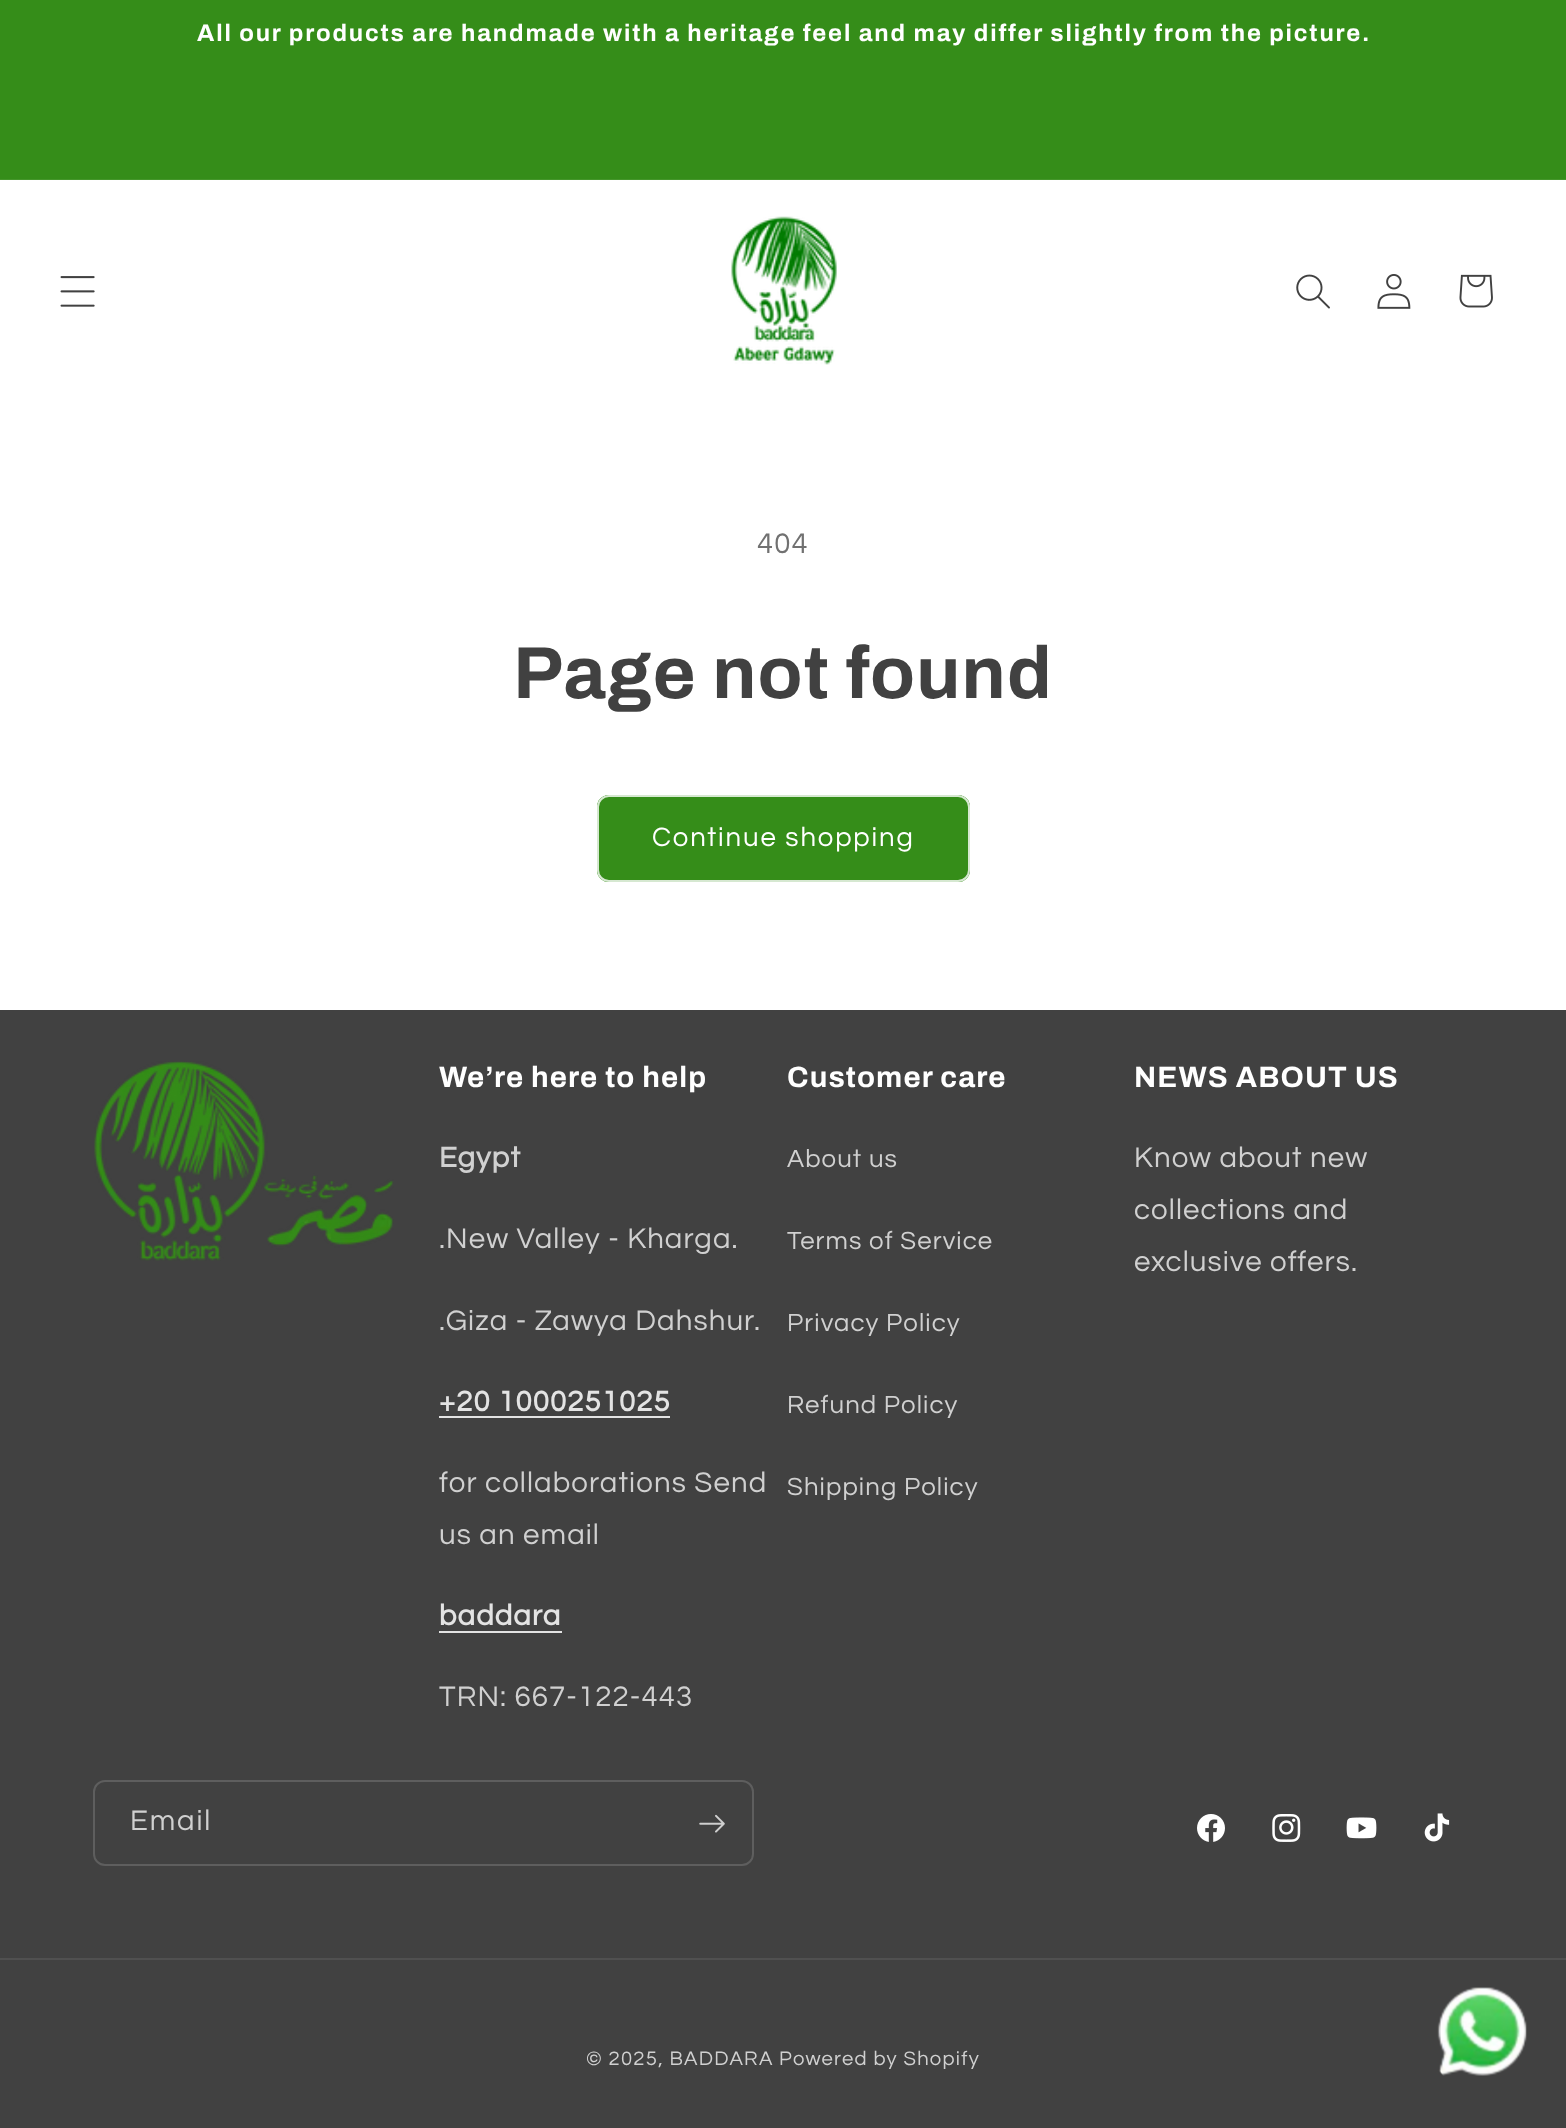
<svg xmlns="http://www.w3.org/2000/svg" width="1566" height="2128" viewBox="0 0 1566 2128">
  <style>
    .t1 { font: bold 23.9px Archivo; letter-spacing: 1.85px; fill: #fff; }
    .t2 { font: 29.4px Questrial; letter-spacing: 1.1px; fill: #717171; }
    .t3 { font: bold 73.5px Archivo; letter-spacing: 1.1px; fill: #414141; }
    .t4 { font: 27.5px Questrial; letter-spacing: 1.85px; fill: #fff; }
    .t5 { font: bold 29.4px Archivo; letter-spacing: 1.1px; fill: #fff; }
    .t6 { font: bold 29.4px Questrial; letter-spacing: 1.1px; fill: #d0d0d0; }
    .t7 { font: 29.4px Questrial; letter-spacing: 1.1px; fill: #d0d0d0; }
    .t8 { font: bold 29.4px Questrial; letter-spacing: 1.1px; fill: #e3e3e3; }
    .t9 { font: 25.75px Questrial; letter-spacing: 1.1px; fill: #d0d0d0; }
    .t10 { font: 29.4px Questrial; letter-spacing: 1.85px; fill: #d0d0d0; }
    .t11 { font: 20.25px Questrial; letter-spacing: 1.25px; fill: #d0d0d0; }
  </style>
  <rect width="100%" height="100%" fill="#fff"/>
  <rect x="0" y="0" width="1566" height="179" fill="#358d19"/>
  <rect x="0" y="179" width="1566" height="1" fill="#45962b"/>
  <text x="197" y="41" class="t1">All our products are handmade with a heritage feel and may differ slightly from the picture.</text>
  <image x="60" y="276" width="35" height="31" href="images/1.png"/>
  <image x="731" y="216" width="106" height="149" href="images/2.png"/>
  <image x="1296" y="274" width="34" height="35" href="images/3.png"/>
  <image x="1377" y="274" width="34" height="35" href="images/4.png"/>
  <image x="1459" y="274" width="34" height="34" href="images/5.png"/>
  <text x="757" y="553" class="t2">404</text>
  <text x="513" y="698" class="t3">Page not found</text>
  <rect x="597" y="795" width="373" height="87" rx="12" fill="#358d19"/>
  <rect x="598" y="796" width="371" height="85" rx="11" fill="none" stroke="#358d19" stroke-width="2"/>
  <rect x="598" y="796" width="371" height="85" rx="11" fill="none" stroke="#ffffffcc" stroke-width="2"/>
  <text x="652" y="846" class="t4">Continue shopping</text>
  <rect x="0" y="1010" width="1566" height="1118" fill="#414141"/>
  <image x="94" y="1061" width="300" height="200" href="images/6.png"/>
  <text x="439" y="1087" class="t5">We’re here to help</text>
  <text x="439" y="1167" class="t6">Egypt</text>
  <text x="439" y="1248" class="t7">.New Valley - Kharga.</text>
  <text x="439" y="1330" class="t7">.Giza - Zawya Dahshur.</text>
  <text x="439" y="1411" class="t8">+20 1000251025</text>
  <rect x="439" y="1416" width="231" height="2" fill="#e3e3e3"/>
  <text x="439" y="1492" class="t7">for collaborations Send</text>
  <text x="439" y="1544" class="t7">us an email</text>
  <text x="439" y="1625" class="t8">baddara</text>
  <rect x="439" y="1631" width="123" height="2" fill="#e3e3e3"/>
  <text x="439" y="1706" class="t7">TRN: 667-122-443</text>
  <text x="787" y="1087" class="t5">Customer care</text>
  <text x="787" y="1167" class="t9">About us</text>
  <text x="787" y="1249" class="t9">Terms of Service</text>
  <text x="787" y="1331" class="t9">Privacy Policy</text>
  <text x="787" y="1413" class="t9">Refund Policy</text>
  <text x="787" y="1495" class="t9">Shipping Policy</text>
  <text x="1134" y="1087" class="t5">NEWS ABOUT US</text>
  <text x="1134" y="1167" class="t7">Know about new</text>
  <text x="1134" y="1219" class="t7">collections and</text>
  <text x="1134" y="1271" class="t7">exclusive offers.</text>
  <rect x="94" y="1781" width="659" height="84" rx="11" fill="none" stroke="#5e5e5e" stroke-width="2"/>
  <text x="130" y="1830" class="t10">Email</text>
  <image x="699" y="1814" width="26" height="19" href="images/7.png"/>
  <image x="1197" y="1814" width="28" height="28" href="images/8.png"/>
  <image x="1272" y="1814" width="29" height="28" href="images/9.png"/>
  <image x="1346" y="1817" width="31" height="22" href="images/10.png"/>
  <image x="1424" y="1813" width="26" height="29" href="images/11.png"/>
  <rect x="0" y="1958" width="1566" height="2" fill="#505050"/>
  <text x="586" y="2065" class="t11">© 2025, BADDARA</text>
  <text x="779" y="2065" class="t11">Powered by Shopify</text>
  <image x="1437" y="1987" width="90" height="89" href="images/12.png"/>
</svg>
